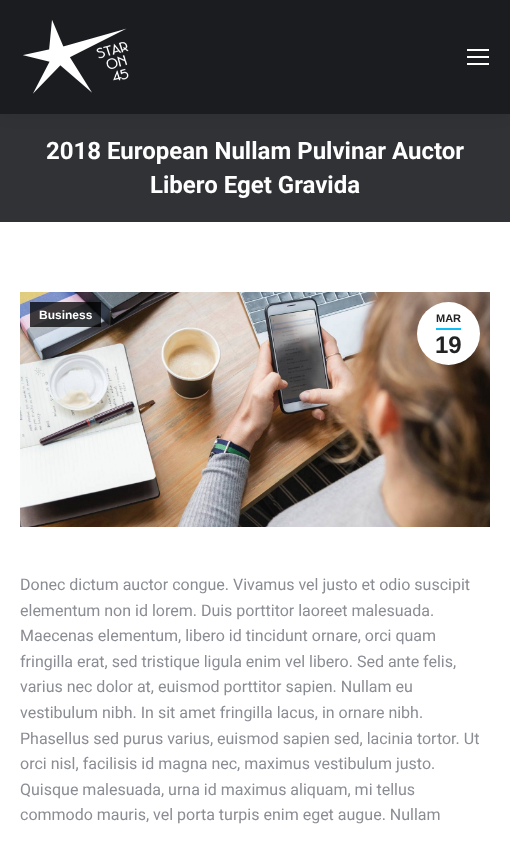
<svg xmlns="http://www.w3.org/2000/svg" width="510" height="842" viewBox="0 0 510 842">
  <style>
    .t1 { font: bold 24px Roboto; fill: #fff; }
    .t2 { font: bold 12px Liberation Sans; fill: #fff; }
    .t3 { font: bold 11px Liberation Sans; fill: #222; }
    .t4 { font: bold 24px Liberation Sans; fill: #222; }
    .t5 { font: 16px Roboto; fill: #8b8d94; }
  </style>
  <rect width="100%" height="100%" fill="#fff"/>
  <rect x="0" y="114" width="510" height="108" fill="#303236"/>
  <rect x="-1" y="-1" width="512" height="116" fill="#00000012" filter="blur(7.5px)"/>
  <rect x="0" y="0" width="510" height="114" fill="#1a1c20"/>
  <image x="23" y="20" width="106" height="74" href="images/1.png"/>
  <rect x="467" y="49" width="22" height="2" fill="#fff"/>
  <rect x="467" y="56" width="22" height="2" fill="#fff"/>
  <rect x="467" y="63" width="22" height="2" fill="#fff"/>
  <text x="46" y="159" class="t1">2018 European Nullam Pulvinar Auctor</text>
  <text x="150" y="193" class="t1">Libero Eget Gravida</text>
  <image x="20" y="292" width="470" height="235" href="images/2.png"/>
  <rect x="30" y="302" width="71" height="25" fill="#000000bf"/>
  <text x="39" y="319" class="t2">Business</text>
  <circle cx="448.5" cy="333.5" r="31.5" fill="#fff"/>
  <text x="436" y="322" class="t3">MAR</text>
  <rect x="436" y="328" width="25" height="2" fill="#0fbcf5"/>
  <text x="435" y="353" class="t4">19</text>
  <text x="20" y="590" class="t5">Donec dictum auctor congue. Vivamus vel justo et odio suscipit</text>
  <text x="20" y="616" class="t5">elementum non id lorem. Duis porttitor laoreet malesuada.</text>
  <text x="20" y="641" class="t5">Maecenas elementum, libero id tincidunt ornare, orci quam</text>
  <text x="20" y="667" class="t5">fringilla erat, sed tristique ligula enim vel libero. Sed ante felis,</text>
  <text x="20" y="692" class="t5">varius nec dolor at, euismod porttitor sapien. Nullam eu</text>
  <text x="20" y="718" class="t5">vestibulum nibh. In sit amet fringilla lacus, in ornare nibh.</text>
  <text x="20" y="744" class="t5">Phasellus sed purus varius, euismod sapien sed, lacinia tortor. Ut</text>
  <text x="20" y="769" class="t5">orci nisl, facilisis id magna nec, maximus vestibulum justo.</text>
  <text x="20" y="795" class="t5">Quisque malesuada, urna id maximus aliquam, mi tellus</text>
  <text x="20" y="820" class="t5">commodo mauris, vel porta turpis enim eget augue. Nullam</text>
</svg>
